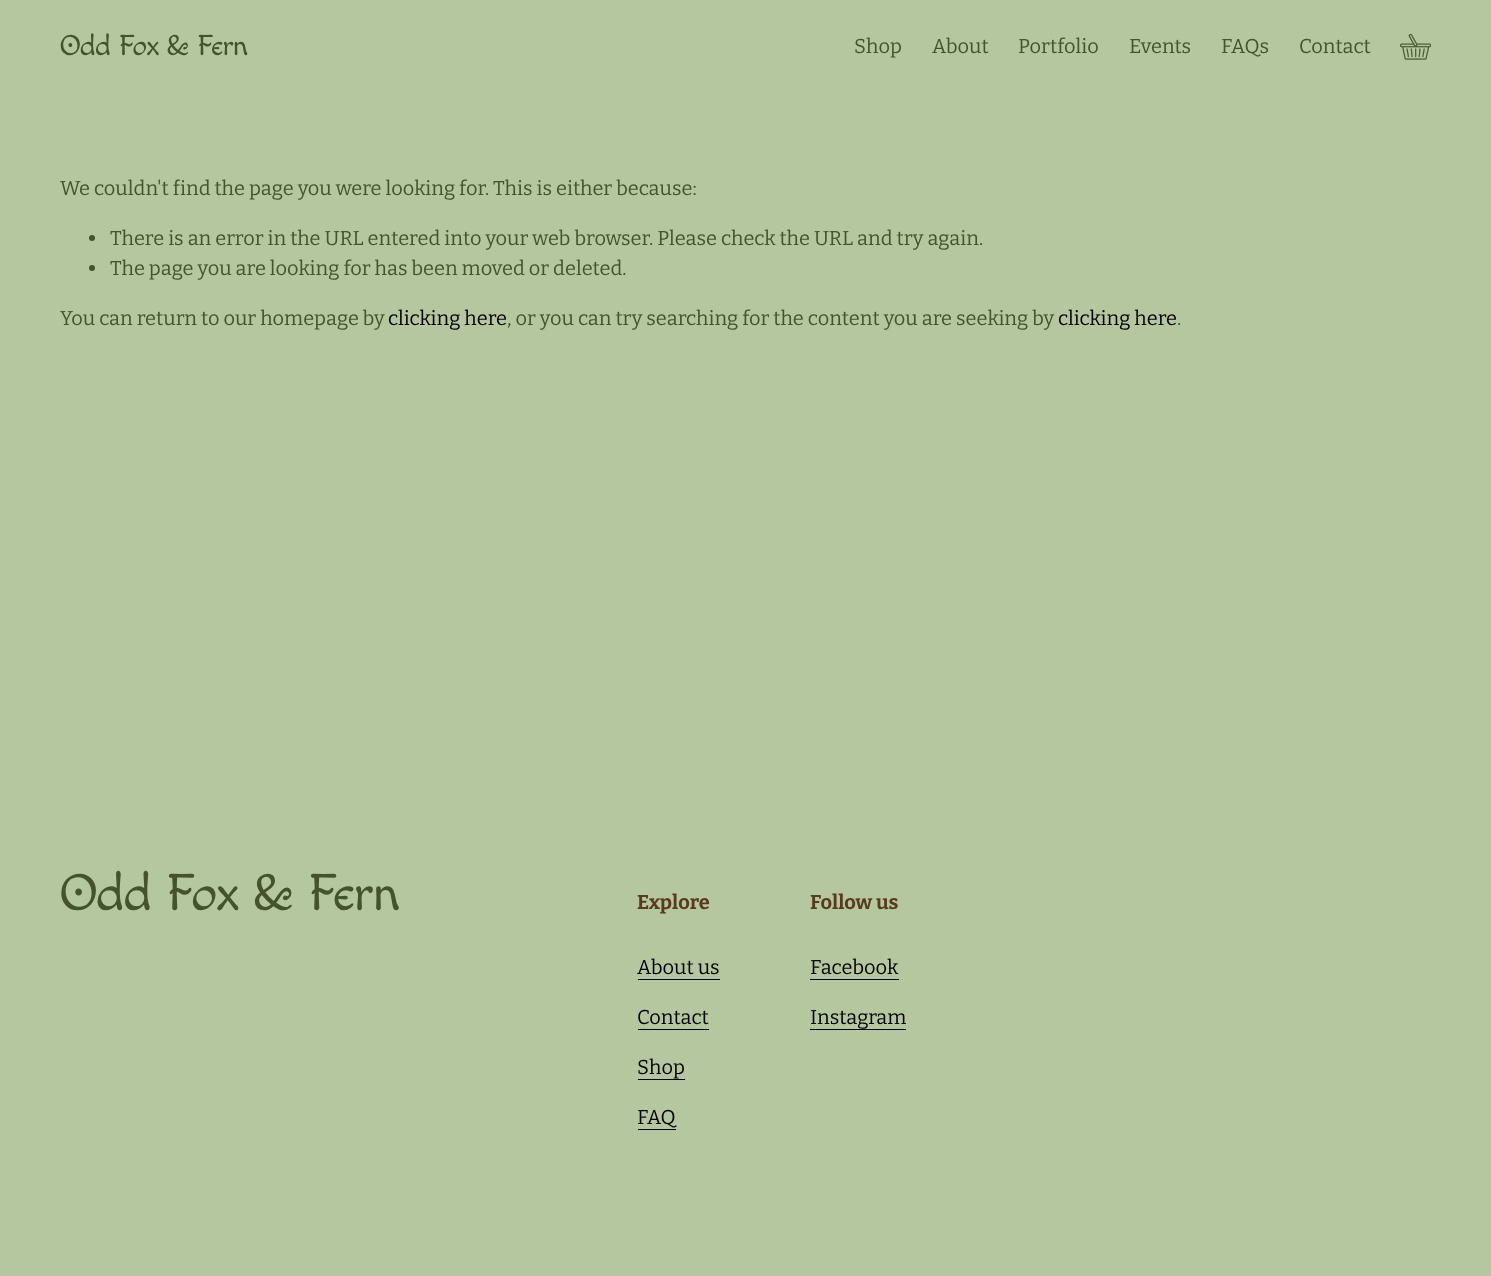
<svg xmlns="http://www.w3.org/2000/svg" width="1491" height="1276" viewBox="0 0 1491 1276">
  <style>
    .t1 { font: 29px Macondo Swash Caps; letter-spacing: -0.6px; fill: #44532e; }
    .t2 { font: 20px Bitter; fill: #44532e; }
    .t3 { font: 20px Bitter; fill: #000; }
    .t4 { font: 52.25px Macondo Swash Caps; letter-spacing: -1px; fill: #44532e; }
    .t5 { font: bold 20px Bitter; fill: #583b1f; }
  </style>
  <rect width="100%" height="100%" fill="#b5c79e"/>
  <text x="60" y="55" class="t1">Odd Fox &amp; Fern</text>
  <text x="854" y="53" class="t2">Shop</text>
  <text x="932" y="53" class="t2">About</text>
  <text x="1018" y="53" class="t2">Portfolio</text>
  <text x="1129" y="53" class="t2">Events</text>
  <text x="1221" y="53" class="t2">FAQs</text>
  <text x="1299" y="53" class="t2">Contact</text>
  <image x="1400" y="33" width="31" height="27" href="images/1.png"/>
  <text x="60" y="195" class="t2">We couldn't find the page you were looking for. This is either because:</text>
  <circle cx="92" cy="238" r="3" fill="#44532e"/>
  <text x="110" y="245" class="t2">There is an error in the URL entered into your web browser. Please check the URL and try again.</text>
  <circle cx="92" cy="268" r="3" fill="#44532e"/>
  <text x="110" y="275" class="t2">The page you are looking for has been moved or deleted.</text>
  <text x="60" y="325" class="t2">You can return to our homepage by</text>
  <text x="388" y="325" class="t3">clicking here</text>
  <text x="507" y="325" class="t2">, or you can try searching for the content you are seeking by</text>
  <text x="1058" y="325" class="t3">clicking here</text>
  <text x="1177" y="325" class="t2">.</text>
  <text x="60" y="910" class="t4">Odd Fox &amp; Fern</text>
  <text x="637" y="909" class="t5">Explore</text>
  <text x="810" y="909" class="t5">Follow us</text>
  <text x="637" y="974" class="t3">About us</text>
  <rect x="638" y="979" width="82" height="1" fill="#000"/>
  <text x="637" y="1024" class="t3">Contact</text>
  <rect x="638" y="1029" width="71" height="1" fill="#000"/>
  <text x="637" y="1074" class="t3">Shop</text>
  <rect x="638" y="1079" width="47" height="1" fill="#000"/>
  <text x="637" y="1124" class="t3">FAQ</text>
  <rect x="638" y="1129" width="38" height="1" fill="#000"/>
  <text x="810" y="974" class="t3">Facebook</text>
  <rect x="810" y="979" width="89" height="1" fill="#000"/>
  <text x="810" y="1024" class="t3">Instagram</text>
  <rect x="810" y="1029" width="96" height="1" fill="#000"/>
</svg>
